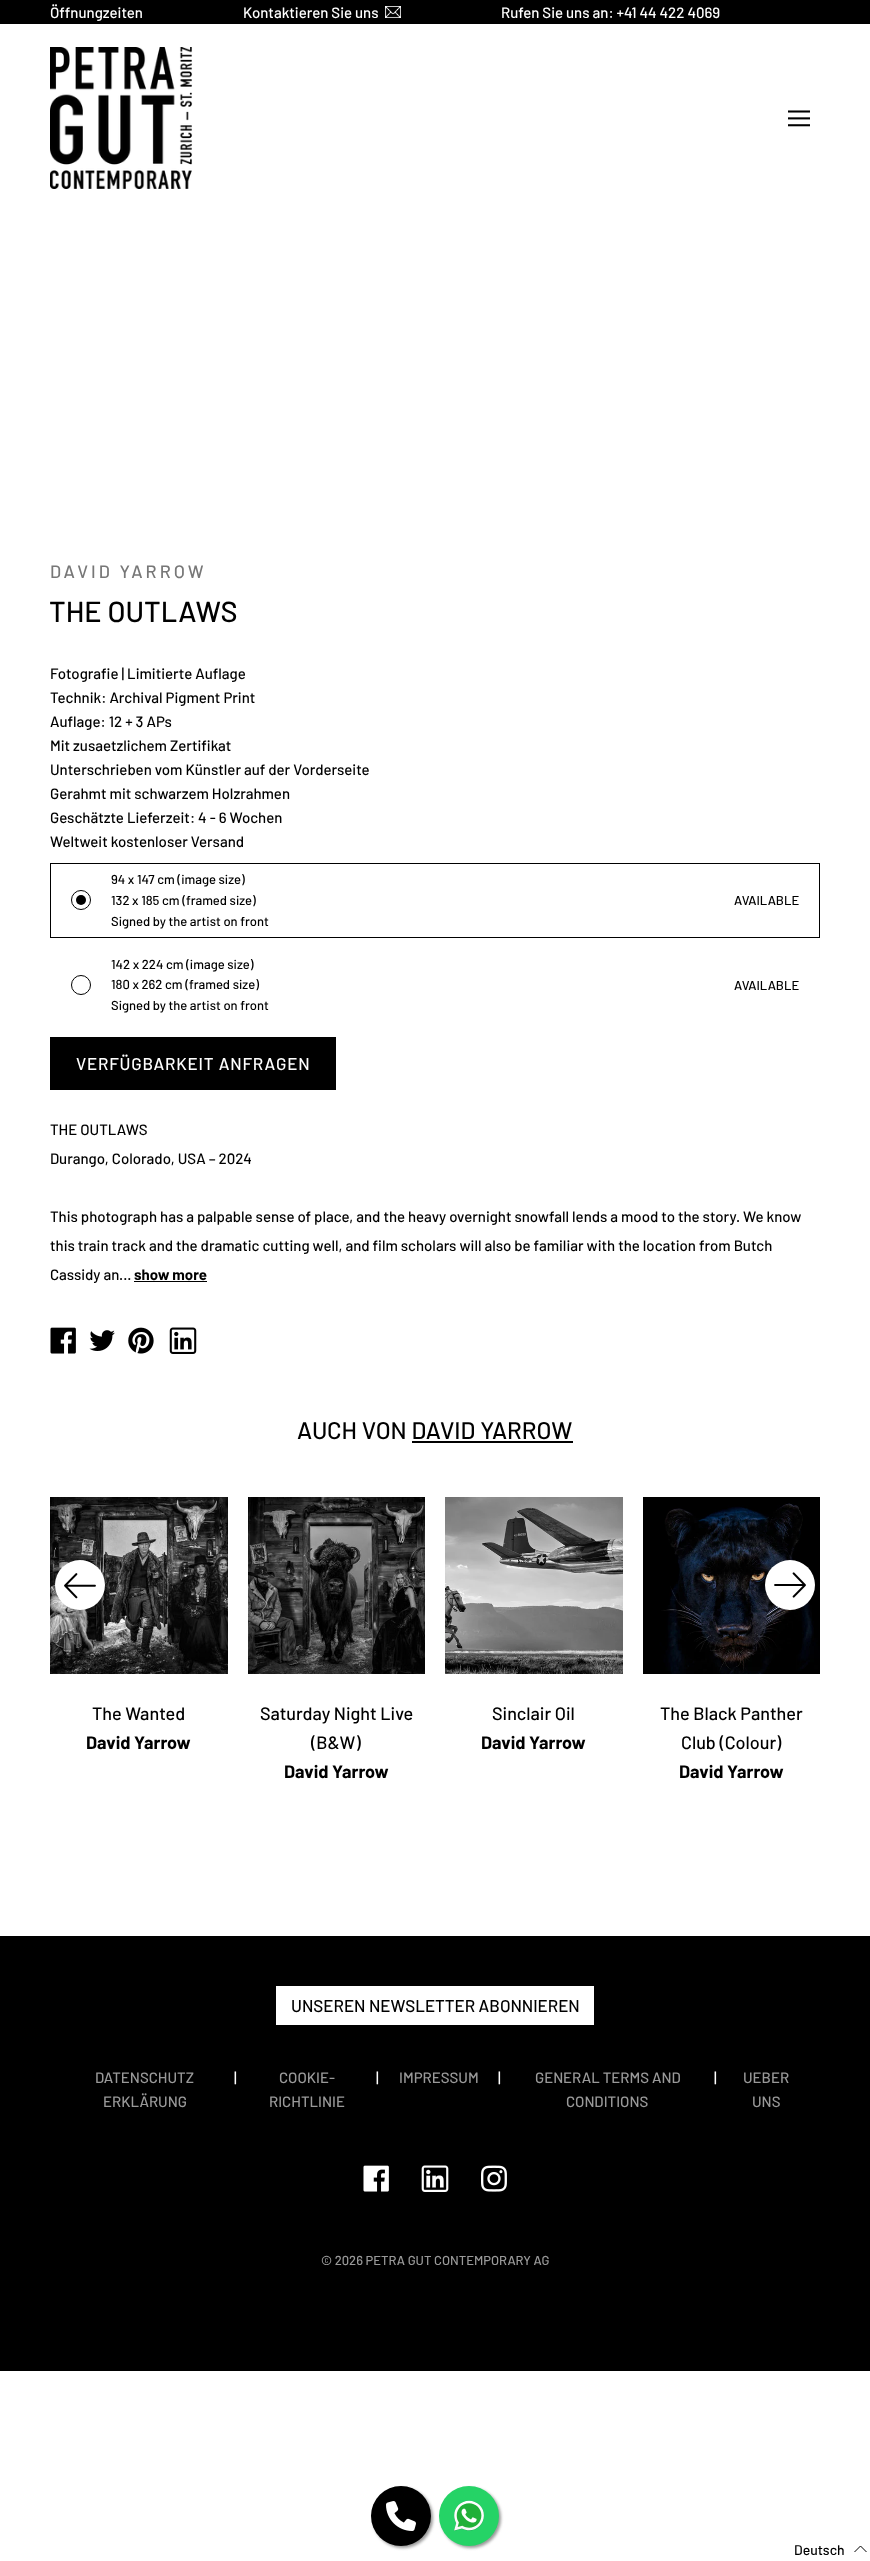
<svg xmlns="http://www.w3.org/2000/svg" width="870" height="2561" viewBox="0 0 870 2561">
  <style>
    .t1 { font: 500 15px Barlow; fill: #fff; }
    .t2 { font: 500 18px Barlow; letter-spacing: 3px; fill: #777; }
    .t3 { font: 500 29px Barlow; fill: #000; }
    .t4 { font: 500 15px Barlow; fill: #000; }
    .t5 { font: 500 13px Barlow; fill: #000; }
    .t6 { font: 500 17px Barlow; letter-spacing: 0.85px; fill: #fff; }
    .t7 { font: bold 15px Barlow; fill: #000; }
    .t8 { font: 500 24px Barlow; fill: #000; }
    .t9 { font: 500 18px Barlow; fill: #000; }
    .t10 { font: bold 18px Barlow; fill: #000; }
    .t11 { font: 500 17px Barlow; fill: #000; }
    .t12 { font: 500 15px Barlow; fill: #999; }
    .t13 { font: 500 13px Barlow; fill: #999; }
    .t14 { font: 500 14px Barlow; fill: #000; }
  </style>
  <rect width="100%" height="100%" fill="#fff"/>
  <rect x="0" y="0" width="870" height="24" fill="#000"/>
  <text x="50" y="18" class="t1">Öffnungzeiten</text>
  <text x="243" y="18" class="t1">Kontaktieren Sie uns</text>
  <image x="385" y="6" width="16" height="12" href="images/1.png"/>
  <text x="501" y="18" class="t1">Rufen Sie uns an: +41 44 422 4069</text>
  <image x="50" y="47" width="143" height="142" href="images/2.png"/>
  <image x="788" y="110" width="22" height="17" href="images/3.png"/>
  <text x="50" y="578" class="t2">DAVID YARROW</text>
  <text x="49" y="622" class="t3">THE OUTLAWS</text>
  <text x="50" y="679" class="t4">Fotografie | Limitierte Auflage</text>
  <text x="50" y="703" class="t4">Technik: Archival Pigment Print</text>
  <text x="50" y="727" class="t4">Auflage: 12 + 3 APs</text>
  <text x="50" y="751" class="t4">Mit zusaetzlichem Zertifikat</text>
  <text x="50" y="775" class="t4">Unterschrieben vom Künstler auf der Vorderseite</text>
  <text x="50" y="799" class="t4">Gerahmt mit schwarzem Holzrahmen</text>
  <text x="50" y="823" class="t4">Geschätzte Lieferzeit: 4 - 6 Wochen</text>
  <text x="50" y="847" class="t4">Weltweit kostenloser Versand</text>
  <rect x="50.5" y="863.5" width="769" height="74" fill="none" stroke="#000"/>
  <text x="111" y="884" class="t5">94 x 147 cm (image size)</text>
  <circle cx="81" cy="900" r="5" fill="#000"/>
  <circle cx="81" cy="900" r="9.5" fill="none" stroke="#000"/>
  <text x="111" y="905" class="t5">132 x 185 cm (framed size)</text>
  <text x="734" y="905" class="t5">AVAILABLE</text>
  <text x="111" y="926" class="t5">Signed by the artist on front</text>
  <text x="111" y="969" class="t5">142 x 224 cm (image size)</text>
  <circle cx="81" cy="985" r="9.5" fill="none" stroke="#000"/>
  <text x="111" y="989" class="t5">180 x 262 cm (framed size)</text>
  <text x="734" y="990" class="t5">AVAILABLE</text>
  <text x="111" y="1010" class="t5">Signed by the artist on front</text>
  <rect x="50" y="1037" width="286" height="53" fill="#000"/>
  <text x="76" y="1070" class="t6">VERFÜGBARKEIT ANFRAGEN</text>
  <text x="50" y="1135" class="t4">THE OUTLAWS</text>
  <text x="50" y="1164" class="t4">Durango, Colorado, USA – 2024</text>
  <text x="50" y="1222" class="t4">This photograph has a palpable sense of place, and the heavy overnight snowfall lends a mood to the story. We know</text>
  <text x="50" y="1251" class="t4">this train track and the dramatic cutting well, and film scholars will also be familiar with the location from Butch</text>
  <text x="50" y="1280" class="t4">Cassidy an...</text>
  <text x="134" y="1280" class="t7">show more</text>
  <rect x="134" y="1281" width="73" height="1" fill="#000"/>
  <image x="50" y="1327" width="26" height="27" href="images/4.png"/>
  <image x="89" y="1330" width="26" height="21" href="images/5.png"/>
  <image x="128" y="1327" width="26" height="27" href="images/6.png"/>
  <image x="169" y="1327" width="28" height="27" href="images/7.png"/>
  <text x="297" y="1439" class="t8">AUCH VON DAVID YARROW</text>
  <rect x="412" y="1441" width="161" height="2" fill="#000"/>
  <image x="50" y="1497" width="178" height="177" href="images/10.png"/>
  <circle cx="80" cy="1585" r="25" fill="#fff"/>
  <image x="64" y="1573" width="32" height="26" href="images/8.png"/>
  <image x="643" y="1497" width="177" height="177" href="images/13.png"/>
  <circle cx="790" cy="1585" r="25" fill="#fff"/>
  <image x="774" y="1572" width="32" height="26" href="images/9.png"/>
  <text x="92" y="1720" class="t9">The Wanted</text>
  <text x="86" y="1749" class="t10">David Yarrow</text>
  <image x="248" y="1497" width="177" height="177" href="images/11.png"/>
  <text x="260" y="1720" class="t9">Saturday Night Live</text>
  <text x="311" y="1749" class="t9">(B&amp;W)</text>
  <text x="284" y="1778" class="t10">David Yarrow</text>
  <image x="445" y="1497" width="178" height="177" href="images/12.png"/>
  <text x="492" y="1720" class="t9">Sinclair Oil</text>
  <text x="481" y="1749" class="t10">David Yarrow</text>
  <text x="660" y="1720" class="t9">The Black Panther</text>
  <text x="681" y="1749" class="t9">Club (Colour)</text>
  <text x="679" y="1778" class="t10">David Yarrow</text>
  <rect x="0" y="1936" width="870" height="435" fill="#000"/>
  <rect x="276" y="1986" width="318" height="39" fill="#fff"/>
  <text x="291" y="2012" class="t11">UNSEREN NEWSLETTER ABONNIEREN</text>
  <text x="95" y="2083" class="t12">DATENSCHUTZ</text>
  <text x="103" y="2107" class="t12">ERKLÄRUNG</text>
  <text x="234" y="2083" class="t1">|</text>
  <text x="279" y="2083" class="t12">COOKIE-</text>
  <text x="269" y="2107" class="t12">RICHTLINIE</text>
  <text x="376" y="2083" class="t1">|</text>
  <text x="399" y="2083" class="t12">IMPRESSUM</text>
  <text x="498" y="2083" class="t1">|</text>
  <text x="535" y="2083" class="t12">GENERAL TERMS AND</text>
  <text x="566" y="2107" class="t12">CONDITIONS</text>
  <text x="714" y="2083" class="t1">|</text>
  <text x="743" y="2083" class="t12">UEBER</text>
  <text x="752" y="2107" class="t12">UNS</text>
  <image x="363" y="2165" width="26" height="27" href="images/14.png"/>
  <image x="421" y="2165" width="28" height="27" href="images/15.png"/>
  <image x="481" y="2165" width="26" height="27" href="images/16.png"/>
  <text x="321" y="2265" class="t13">© 2026 PETRA GUT CONTEMPORARY AG</text>
  <rect x="373" y="2488" width="60" height="60" rx="30" fill="#999" filter="blur(1.5px)"/>
  <circle cx="401" cy="2516" r="30" fill="#000"/>
  <image x="386" y="2501" width="30" height="30" href="images/17.png"/>
  <rect x="441" y="2488" width="60" height="60" rx="30" fill="#999" filter="blur(1.5px)"/>
  <circle cx="469" cy="2516" r="30" fill="#25d366"/>
  <image x="454" y="2500" width="30" height="31" href="images/18.png"/>
  <text x="794" y="2555" class="t14">Deutsch</text>
  <path d="M866.5 2552L860.5 2546L854.5 2552" fill="none" stroke="#000"/>
</svg>
